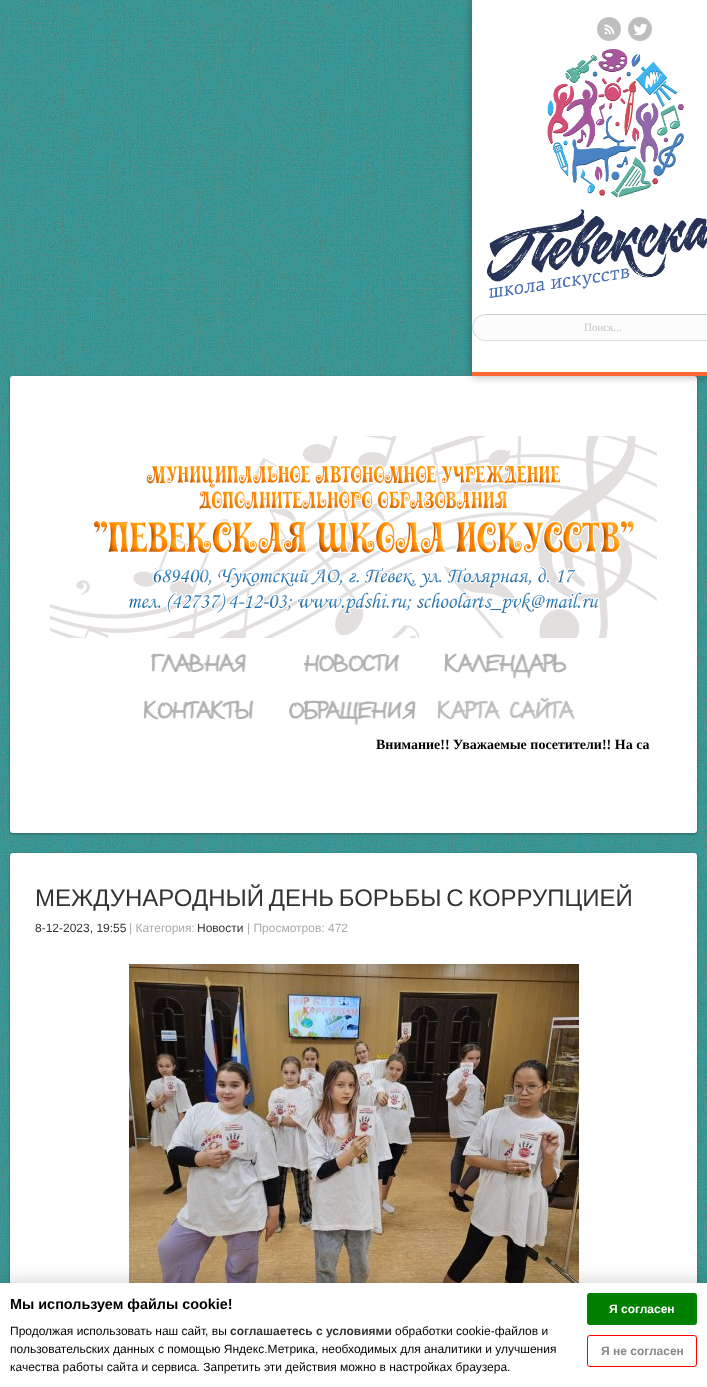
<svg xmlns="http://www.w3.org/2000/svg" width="707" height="1387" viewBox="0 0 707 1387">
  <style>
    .t1 { font: 11px Liberation Serif; fill: #c5c5c5; }
    .t2 { font: bold 14px Liberation Serif; fill: #000; }
    .t3 { font: 24px Liberation Sans; fill: #333; }
    .t4 { font: 12px Liberation Sans; fill: #333; }
    .t5 { font: 12px Liberation Sans; fill: #aaa; }
    .t6 { font: bold 14.4px Liberation Sans; fill: #000; }
    .t7 { font: 12px Liberation Sans; fill: #000; }
    .t8 { font: bold 12px Liberation Sans; fill: #333; }
    .t9 { font: bold 12px Liberation Sans; fill: #fff; }
    .t10 { font: bold 12px Liberation Sans; fill: #888; }
  </style>
  <rect width="100%" height="100%" fill="#2b9291"/>
  <image x="0" y="0" width="707" height="1283" href="images/1.png"/>
  <rect x="10" y="377" width="687" height="457" rx="3" fill="#22191966" filter="blur(1.5px)"/>
  <rect x="10" y="376" width="687" height="457" rx="3" fill="#fff"/>
  <rect x="472" y="0" width="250" height="376" fill="#00000054" filter="blur(5px)"/>
  <rect x="472" y="0" width="235" height="372" fill="#fff"/>
  <rect x="472" y="372" width="235" height="4" fill="#ff6833"/>
  <image x="597" y="17" width="24" height="24" href="images/2.png"/>
  <image x="628" y="17" width="24" height="24" href="images/3.png"/>
  <image x="487" y="49" width="220" height="249" href="images/4.png"/>
  <rect x="472" y="314" width="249" height="27" rx="13.5" fill="#fcfcfc"/>
  <path d="M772.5 318.5C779 324.5 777 336 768.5 339.5L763.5 340.5H484C481 340 478.5 339 476.5 336.5" fill="none" stroke="#ddd"/>
  <path d="M476.5 336.5C470 330.5 472 319 480.5 315.5L485.5 314.5H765C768 315 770.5 316 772.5 318.5" fill="none" stroke="#d1d1d1"/>
  <text x="584" y="331" class="t1">Поиск...</text>
  <image x="50" y="436" width="607" height="202" href="images/5.png"/>
  <image x="150" y="653" width="97" height="20" href="images/6.png"/>
  <image x="303" y="653" width="97" height="20" href="images/7.png"/>
  <image x="444" y="653" width="123" height="26" href="images/8.png"/>
  <image x="143" y="700" width="111" height="20" href="images/9.png"/>
  <image x="288" y="700" width="128" height="25" href="images/10.png"/>
  <image x="437" y="697" width="138" height="23" href="images/11.png"/>
  <text x="376" y="749" class="t2">Внимание!! Уважаемые посетители!! На са</text>
  <rect x="10" y="854" width="687" height="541" rx="3" fill="#22191966" filter="blur(1.5px)"/>
  <rect x="10" y="853" width="687" height="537" rx="3" fill="#fff"/>
  <text x="35" y="906" word-spacing="-2" class="t3">МЕЖДУНАРОДНЫЙ ДЕНЬ БОРЬБЫ С КОРРУПЦИЕЙ</text>
  <text x="35" y="932" class="t4">8-12-2023, 19:55</text>
  <text x="129" y="932" class="t5">| Категория:</text>
  <text x="197" y="932" class="t4">Новости</text>
  <text x="247" y="932" class="t5">| Просмотров: 472</text>
  <image x="129" y="964" width="450" height="319" href="images/12.png"/>
  <rect x="0" y="1283" width="707" height="104" fill="#00000033" filter="blur(10px)"/>
  <rect x="0" y="1283" width="707" height="104" fill="#fff"/>
  <text x="10" y="1309" class="t6">Мы используем файлы cookie!</text>
  <text x="10" y="1335" class="t7">Продолжая использовать наш сайт, вы</text>
  <text x="230" y="1335" class="t8">соглашаетесь с условиями</text>
  <text x="395" y="1335" class="t7">обработки cookie-файлов и</text>
  <text x="10" y="1353" class="t7">пользовательских данных с помощью Яндекс.Метрика, необходимых для аналитики и улучшения</text>
  <text x="10" y="1371" class="t7">качества работы сайта и сервиса. Запретить эти действия можно в настройках браузера.</text>
  <rect x="587" y="1293" width="110" height="32" rx="3" fill="#008000"/>
  <text x="609" y="1313" class="t9">Я согласен</text>
  <rect x="587.5" y="1335.5" width="109" height="31" rx="2.5" fill="none" stroke="#f00"/>
  <text x="601" y="1355" class="t10">Я не согласен</text>
</svg>
